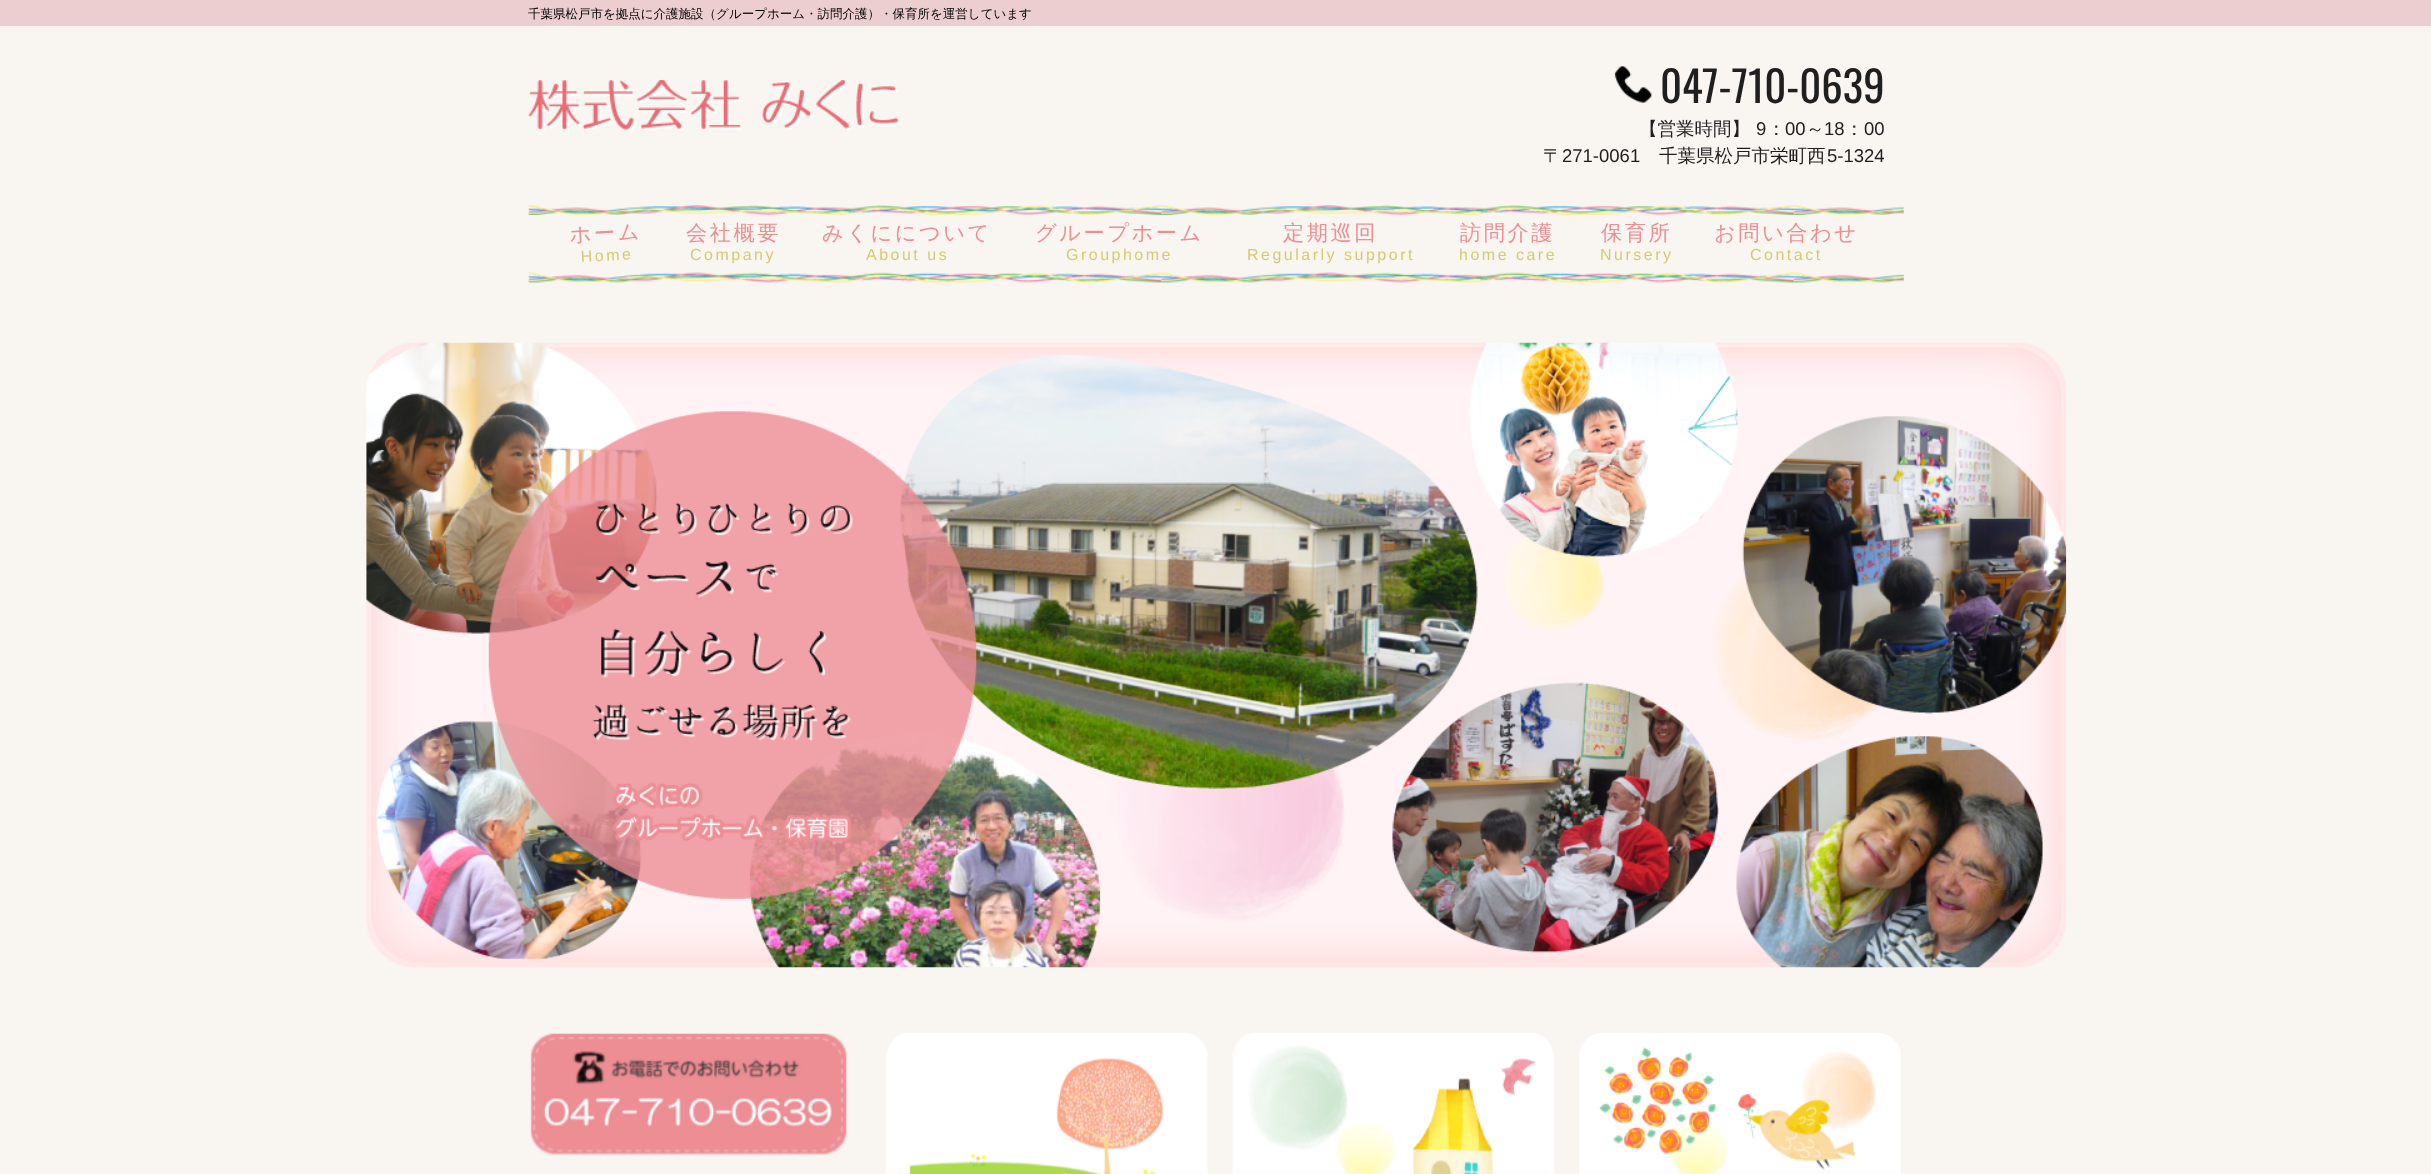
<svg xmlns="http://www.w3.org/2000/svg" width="2431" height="1174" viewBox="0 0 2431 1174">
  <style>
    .t1 { font: 500 12.5px WenQuanYi Zen Hei; fill: #000; }
    .t2 { font: 42.75px Oswald; fill: #1f1f1f; }
    .t3 { font: 500 18.5px WenQuanYi Zen Hei; fill: #1f1f1f; }
    .t4 { font: 18.5px Liberation Sans; fill: #1f1f1f; }
    .t5 { font: 500 21.25px WenQuanYi Zen Hei; letter-spacing: 2.5px; fill: #ed8e95; }
    .t6 { font: 16px Liberation Sans; letter-spacing: 2.5px; fill: #d2cc70; }
  </style>
  <rect width="100%" height="100%" fill="#f9f5f1"/>
  <rect x="0" y="0" width="2431" height="26" fill="#edced0"/>
  <text x="528" y="18" class="t1">千葉県松戸市を拠点に介護施設（グループホーム・訪問介護）・保育所を運営しています</text>
  <image x="528" y="80" width="372" height="52" href="images/1.png"/>
  <image x="1614" y="66" width="38" height="37" href="images/2.png"/>
  <text x="1660" y="103" class="t2">047-710-0639</text>
  <text x="1639" y="135" class="t3">【営業時間】</text>
  <text x="1756" y="135" class="t4">9</text>
  <text x="1767" y="135" class="t3">：</text>
  <text x="1785" y="135" class="t4">00</text>
  <text x="1806" y="135" class="t3">～</text>
  <text x="1824" y="135" class="t4">18</text>
  <text x="1845" y="135" class="t3">：</text>
  <text x="1864" y="135" class="t4">00</text>
  <text x="1543" y="162" class="t3">〒</text>
  <text x="1562" y="162" class="t4">271-0061</text>
  <text x="1659" y="162" class="t3">千葉県松戸市栄町西</text>
  <text x="1827" y="162" class="t4">5-1324</text>
  <image x="528" y="272" width="1376" height="11" href="images/3.png"/>
  <image x="528" y="205" width="1376" height="10" href="images/4.png"/>
  <text x="570" y="242" transform="rotate(-3 570 242)" class="t5">ホーム</text>
  <text x="581" y="262" transform="rotate(-3 581 262)" class="t6">Home</text>
  <text x="686" y="240" class="t5">会社概要</text>
  <text x="690" y="260" class="t6">Company</text>
  <text x="822" y="240" class="t5">みくにについて</text>
  <text x="866" y="260" class="t6">About us</text>
  <text x="1035" y="240" class="t5">グループホーム</text>
  <text x="1066" y="260" class="t6">Grouphome</text>
  <text x="1283" y="240" class="t5">定期巡回</text>
  <text x="1247" y="260" class="t6">Regularly support</text>
  <text x="1460" y="240" class="t5">訪問介護</text>
  <text x="1459" y="260" class="t6">home care</text>
  <text x="1601" y="240" class="t5">保育所</text>
  <text x="1600" y="260" class="t6">Nursery</text>
  <text x="1714" y="240" class="t5">お問い合わせ</text>
  <text x="1750" y="260" class="t6">Contact</text>
  <image x="366" y="342" width="1701" height="626" href="images/5.png"/>
  <image x="530" y="1033" width="318" height="122" href="images/6.png"/>
  <image x="886" y="1033" width="322" height="141" href="images/7.png"/>
  <image x="1232" y="1033" width="322" height="141" href="images/8.png"/>
  <image x="1579" y="1033" width="322" height="141" href="images/9.png"/>
</svg>
